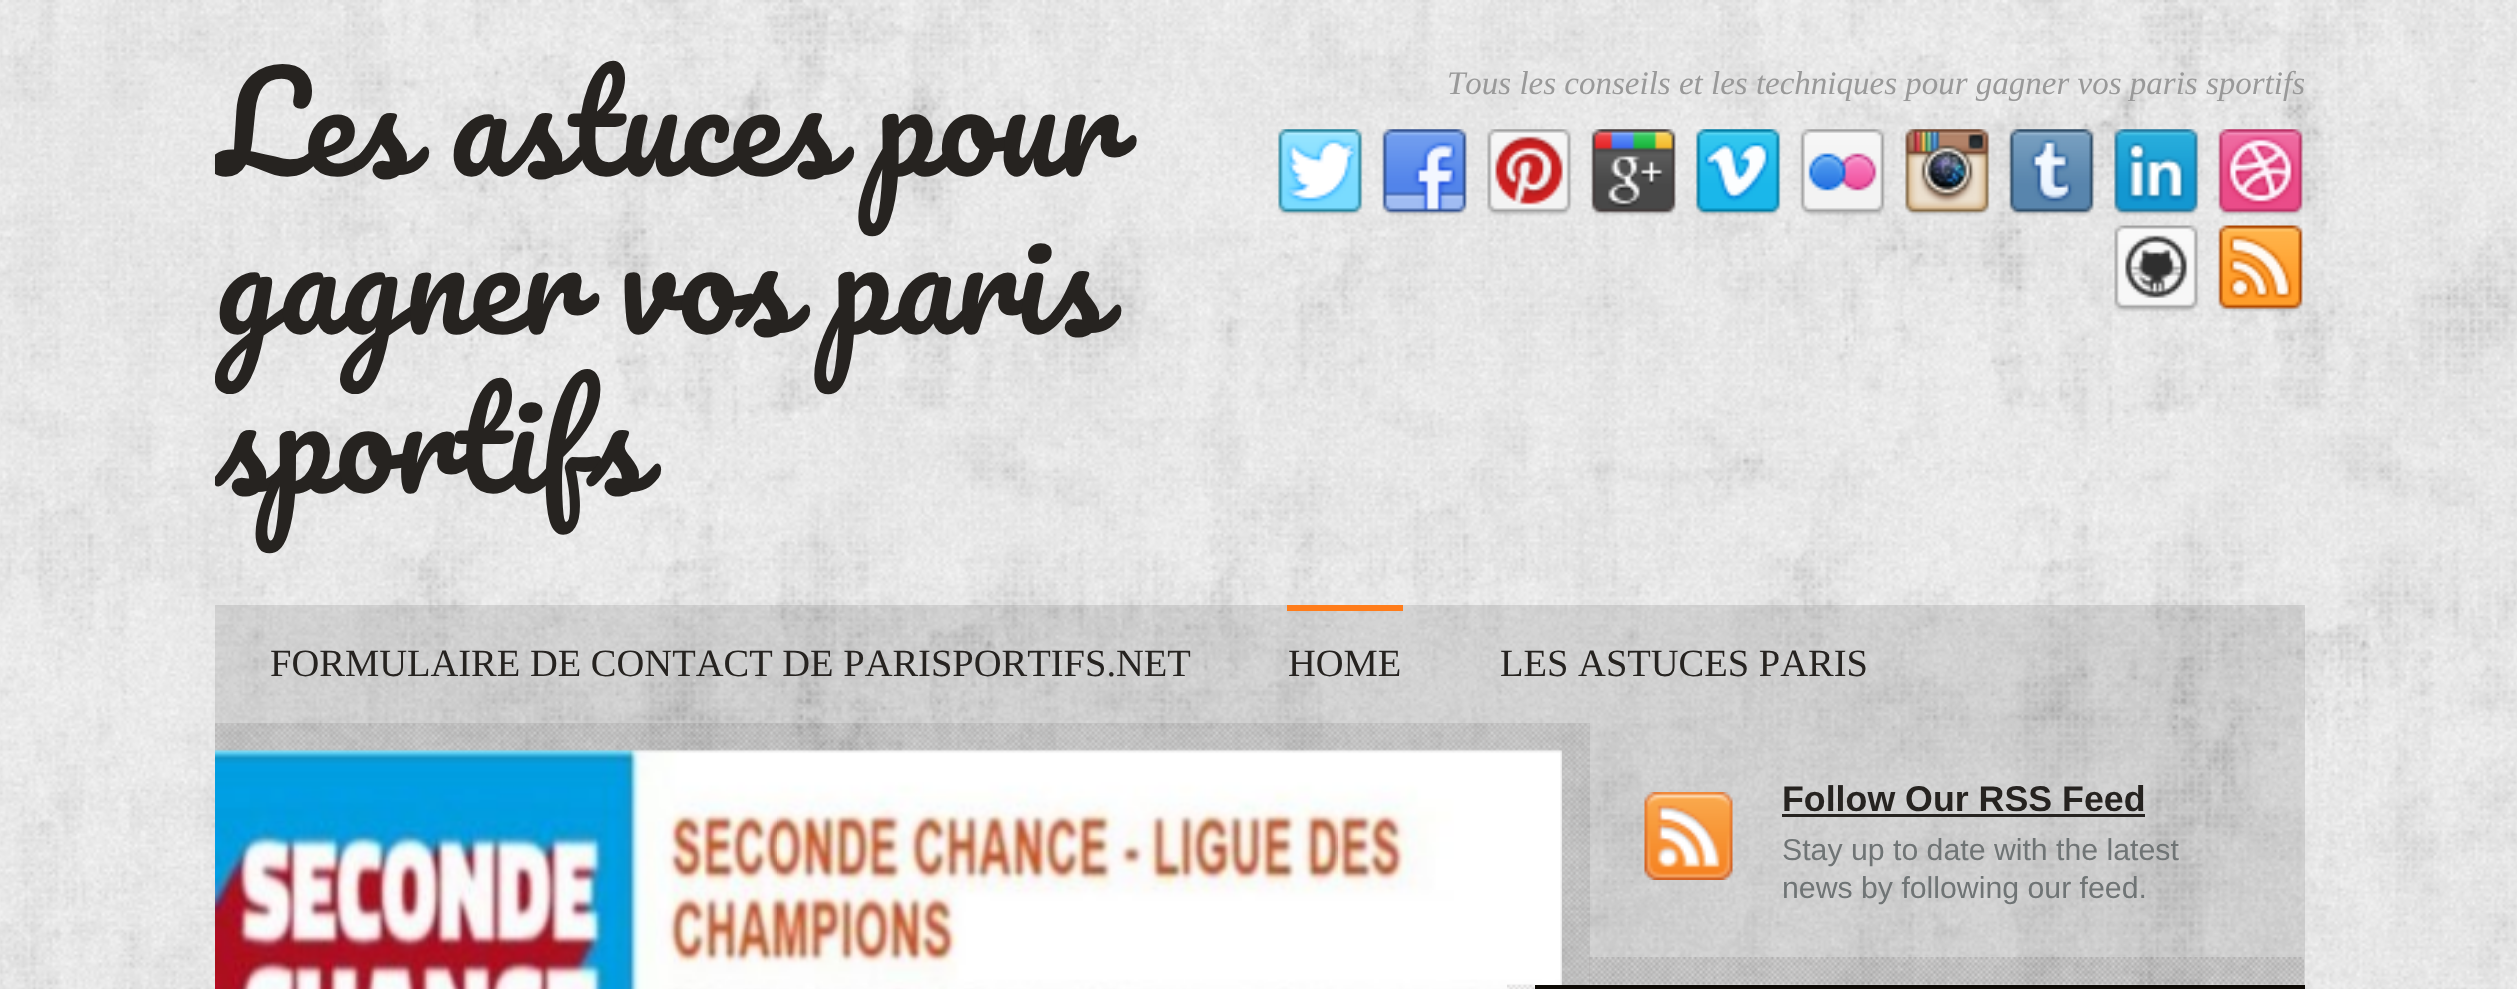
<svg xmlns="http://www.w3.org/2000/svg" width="2517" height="989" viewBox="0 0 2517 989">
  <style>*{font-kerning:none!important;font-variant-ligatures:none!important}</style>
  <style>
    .t1 { font: 132px Pacifico; fill: #262320; }
    .t2 { font: italic 33px Liberation Serif; fill: #999; }
    .t3 { font: 38.5px Liberation Serif; fill: #262320; }
    .t4 { font: bold 35.75px Liberation Sans; fill: #262320; }
    .t5 { font: 30.25px Liberation Sans; fill: #6f7475; }
  </style>
  <defs>
    <clipPath id="clip1"><rect x="215" y="0" width="2090" height="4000"/></clipPath>
  </defs>
  <rect width="100%" height="100%" fill="#fff"/>
  <image x="0" y="0" width="2517" height="989" href="images/1.png"/>
  <g clip-path="url(#clip1)">
    <text x="215" y="176" word-spacing="2" class="t1">Les astuces pour</text>
    <text x="215" y="334" word-spacing="2" class="t1">gagner vos paris</text>
    <text x="215" y="493" class="t1">sportifs</text>
  </g>
  <text x="1447" y="94" class="t2">Tous les conseils et les techniques pour gagner vos paris sportifs</text>
  <image x="1278" y="129" width="85" height="87" href="images/2.png"/>
  <image x="1382" y="129" width="85" height="87" href="images/3.png"/>
  <image x="1487" y="129" width="85" height="87" href="images/4.png"/>
  <image x="1591" y="129" width="85" height="87" href="images/5.png"/>
  <image x="1696" y="129" width="85" height="87" href="images/6.png"/>
  <image x="1800" y="129" width="85" height="87" href="images/7.png"/>
  <image x="1905" y="129" width="85" height="87" href="images/8.png"/>
  <image x="2009" y="129" width="85" height="87" href="images/9.png"/>
  <image x="2114" y="129" width="85" height="87" href="images/10.png"/>
  <image x="2218" y="129" width="85" height="87" href="images/11.png"/>
  <image x="2114" y="225" width="85" height="87" href="images/12.png"/>
  <image x="2218" y="225" width="85" height="87" href="images/13.png"/>
  <rect x="215" y="605" width="2090" height="118" fill="#0000001a"/>
  <text x="270" y="676" class="t3">FORMULAIRE DE CONTACT DE PARISPORTIFS.NET</text>
  <rect x="1287" y="605" width="116" height="6" fill="#ff7c1a"/>
  <text x="1288" y="676" class="t3">HOME</text>
  <text x="1500" y="676" class="t3">LES ASTUCES PARIS</text>
  <rect x="215" y="723" width="2090" height="262" fill="#0000001a"/>
  <image x="215" y="723" width="1375" height="262" href="images/14.png"/>
  <image x="215" y="749" width="1347" height="240" href="images/15.png"/>
  <image x="1507" y="984" width="28" height="5" href="images/16.png"/>
  <rect x="1535" y="985" width="770" height="4" fill="#0d0a05"/>
  <image x="1589" y="957" width="715" height="28" href="images/17.png"/>
  <image x="1644" y="792" width="89" height="88" href="images/18.png"/>
  <text x="1782" y="811" class="t4">Follow Our RSS Feed</text>
  <rect x="1782" y="814" width="363" height="3" fill="#262320"/>
  <text x="1782" y="860" class="t5">Stay up to date with the latest</text>
  <text x="1782" y="898" class="t5">news by following our feed.</text>
</svg>
